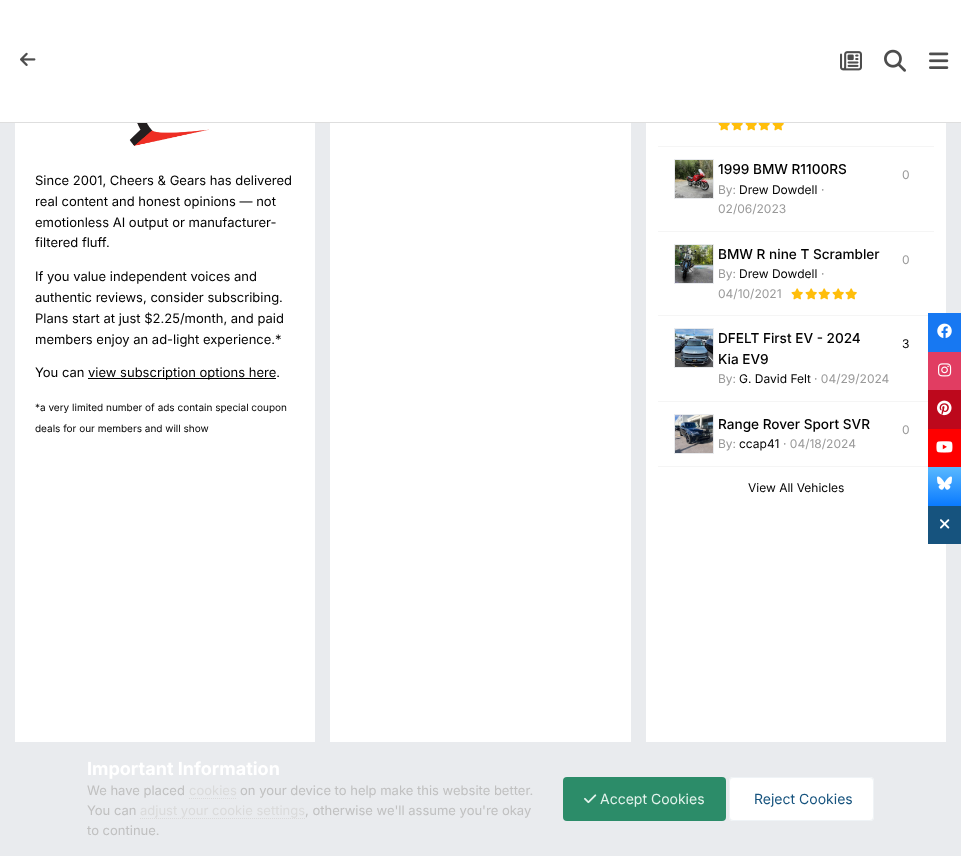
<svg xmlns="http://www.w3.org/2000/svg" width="961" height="856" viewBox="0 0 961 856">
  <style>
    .t1 { font: 13px Inter; fill: #000; }
    .t2 { font: 10px Inter; fill: #000; }
    .t3 { font: 500 13.6px Inter; fill: #000; }
    .t4 { font: 12px Inter; fill: #999; }
    .t5 { font: 12px Inter; fill: #000; }
    .t6 { font: bold 18px Inter; fill: #fff; }
    .t7 { font: 13px Inter; fill: #c0c0c0; }
    .t8 { font: 13px Inter; fill: #dadada; }
    .t9 { font: 14px Inter; fill: #e3f3ec; }
    .t10 { font: 14px Inter; fill: #16537e; }
  </style>
  <defs>
    <linearGradient id="g1" gradientUnits="userSpaceOnUse" x1="945" y1="467" x2="945" y2="506"><stop offset="0" stop-color="#59b9ff"/><stop offset="1" stop-color="#0a7aff"/></linearGradient>
  </defs>
  <rect width="100%" height="100%" fill="#e9ebee"/>
  <rect x="0" y="0" width="961" height="122" fill="#fff"/>
  <rect x="0" y="122" width="961" height="1" fill="#dedede"/>
  <image x="20" y="52" width="16" height="14" href="images/1.png"/>
  <image x="840" y="51" width="22" height="20" href="images/2.png"/>
  <image x="884" y="49" width="22" height="23" href="images/3.png"/>
  <image x="929" y="52" width="20" height="17" href="images/4.png"/>
  <rect x="15" y="123" width="300" height="619" fill="#fff"/>
  <image x="126" y="123" width="84" height="23" href="images/5.png"/>
  <text x="35" y="185" class="t1">Since 2001, Cheers &amp; Gears has delivered</text>
  <text x="35" y="206" class="t1">real content and honest opinions — not</text>
  <text x="35" y="227" class="t1">emotionless AI output or manufacturer-</text>
  <text x="35" y="247" class="t1">filtered fluff.</text>
  <text x="35" y="281" class="t1">If you value independent voices and</text>
  <text x="35" y="302" class="t1">authentic reviews, consider subscribing.</text>
  <text x="35" y="323" class="t1">Plans start at just $2.25/month, and paid</text>
  <text x="35" y="344" class="t1">members enjoy an ad-light experience.*</text>
  <text x="35" y="377" class="t1">You can</text>
  <rect x="88" y="378" width="188" height="1" fill="#000"/>
  <text x="88" y="377" class="t1">view subscription options here.</text>
  <text x="35" y="411" class="t2">*a very limited number of ads contain special coupon</text>
  <text x="35" y="432" class="t2">deals for our members and will show</text>
  <rect x="330" y="123" width="301" height="619" fill="#fff"/>
  <rect x="646" y="123" width="300" height="619" fill="#fff"/>
  <rect x="658" y="146" width="276" height="1" fill="#f5f5f5"/>
  <image x="718" y="123" width="12" height="8" href="images/6.png"/>
  <image x="731" y="123" width="12" height="8" href="images/6.png"/>
  <image x="745" y="123" width="12" height="8" href="images/6.png"/>
  <image x="758" y="123" width="12" height="8" href="images/6.png"/>
  <image x="772" y="123" width="12" height="8" href="images/6.png"/>
  <rect x="658" y="231" width="276" height="1" fill="#f5f5f5"/>
  <image x="675" y="160" width="38" height="38" href="images/7.png"/>
  <rect x="674.5" y="159.5" width="39" height="39" fill="none" stroke="#e9ebee"/>
  <text x="718" y="174" class="t3">1999 BMW R1100RS</text>
  <text x="902" y="179" class="t4">0</text>
  <text x="718" y="194" class="t4">By:</text>
  <text x="739" y="194" class="t5">Drew Dowdell</text>
  <text x="821" y="194" class="t4">·</text>
  <text x="718" y="213" class="t4">02/06/2023</text>
  <rect x="658" y="315" width="276" height="1" fill="#f5f5f5"/>
  <image x="675" y="245" width="38" height="38" href="images/8.png"/>
  <rect x="674.5" y="244.5" width="39" height="39" fill="none" stroke="#e9ebee"/>
  <text x="718" y="259" class="t3">BMW R nine T Scrambler</text>
  <text x="902" y="264" class="t4">0</text>
  <text x="718" y="278" class="t4">By:</text>
  <text x="739" y="278" class="t5">Drew Dowdell</text>
  <text x="821" y="278" class="t4">·</text>
  <text x="718" y="298" class="t4">04/10/2021</text>
  <image x="791" y="288" width="12" height="12" href="images/9.png"/>
  <image x="805" y="288" width="12" height="12" href="images/9.png"/>
  <image x="818" y="288" width="12" height="12" href="images/9.png"/>
  <image x="832" y="288" width="12" height="12" href="images/9.png"/>
  <image x="845" y="288" width="12" height="12" href="images/9.png"/>
  <rect x="658" y="401" width="276" height="1" fill="#f5f5f5"/>
  <image x="675" y="329" width="38" height="38" href="images/10.png"/>
  <rect x="674.5" y="328.5" width="39" height="39" fill="none" stroke="#e9ebee"/>
  <text x="718" y="343" class="t3">DFELT First EV - 2024</text>
  <text x="902" y="348" class="t5">3</text>
  <text x="718" y="364" class="t3">Kia EV9</text>
  <text x="718" y="383" class="t4">By:</text>
  <text x="739" y="383" class="t5">G. David Felt</text>
  <text x="814" y="383" class="t4">· 04/29/2024</text>
  <rect x="658" y="466" width="276" height="1" fill="#f5f5f5"/>
  <image x="675" y="415" width="38" height="38" href="images/11.png"/>
  <rect x="674.5" y="414.5" width="39" height="39" fill="none" stroke="#e9ebee"/>
  <text x="718" y="429" class="t3">Range Rover Sport SVR</text>
  <text x="902" y="434" class="t4">0</text>
  <text x="718" y="448" class="t4">By:</text>
  <text x="739" y="448" class="t5">ccap41</text>
  <text x="783" y="448" class="t4">· 04/18/2024</text>
  <text x="748" y="492" class="t5">View All Vehicles</text>
  <rect x="928" y="313" width="33" height="39" fill="#1778f2"/>
  <image x="937" y="323" width="15" height="15" href="images/12.png"/>
  <rect x="928" y="352" width="33" height="38" fill="#e13d62"/>
  <image x="938" y="363" width="14" height="14" href="images/13.png"/>
  <rect x="928" y="390" width="33" height="39" fill="#bd081c"/>
  <image x="937" y="400" width="15" height="16" href="images/14.png"/>
  <rect x="928" y="429" width="33" height="38" fill="#f00"/>
  <image x="936" y="441" width="17" height="12" href="images/15.png"/>
  <rect x="928" y="467" width="33" height="39" fill="url(#g1)"/>
  <image x="937" y="476" width="15" height="14" href="images/16.png"/>
  <rect x="928" y="506" width="33" height="38" fill="#16537e"/>
  <image x="940" y="519" width="10" height="10" href="images/17.png"/>
  <text x="87" y="775" class="t6">Important Information</text>
  <text x="87" y="795" class="t7">We have placed</text>
  <text x="189" y="795" class="t8">cookies</text>
  <path d="M189 798.5H236" fill="none" stroke="#dadada" stroke-dasharray="1 1"/>
  <text x="240" y="795" class="t7">on your device to help make this website better.</text>
  <text x="87" y="815" class="t7">You can</text>
  <text x="140" y="815" class="t8">adjust your cookie settings</text>
  <path d="M140 818.5H305" fill="none" stroke="#dadada" stroke-dasharray="1 1"/>
  <text x="305" y="815" class="t7">, otherwise we'll assume you're okay</text>
  <text x="87" y="835" class="t7">to continue.</text>
  <rect x="563" y="777" width="163" height="44" rx="4" fill="#2c8c69"/>
  <image x="584" y="794" width="13" height="10" href="images/18.png"/>
  <text x="600" y="804" class="t9">Accept Cookies</text>
  <rect x="729" y="777" width="145" height="44" rx="4" fill="#fff"/>
  <rect x="729.5" y="777.5" width="144" height="43" rx="3.5" fill="none" stroke="#16537e12"/>
  <text x="754" y="804" class="t10">Reject Cookies</text>
</svg>
